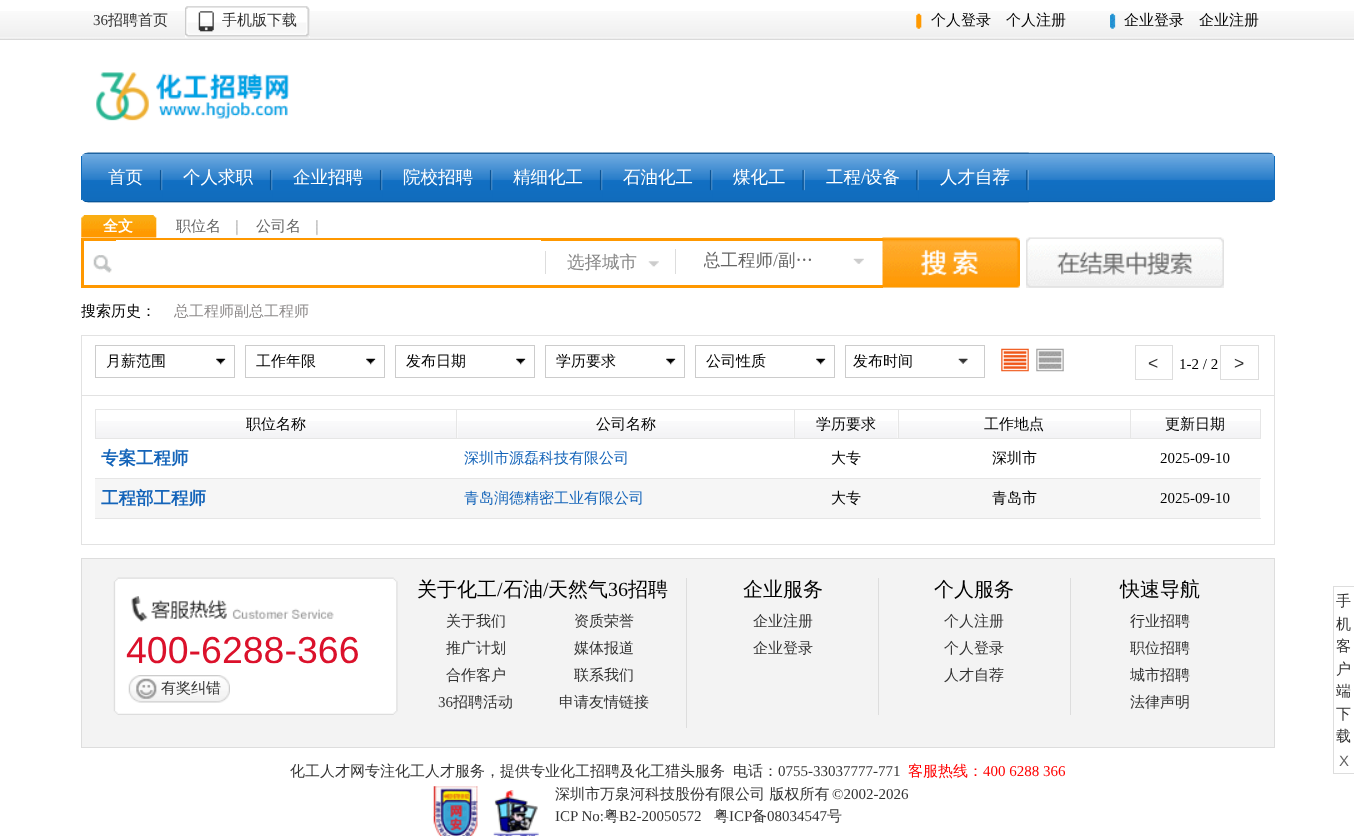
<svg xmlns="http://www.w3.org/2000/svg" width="1354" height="836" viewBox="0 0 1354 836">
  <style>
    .t1 { font: 15px Liberation Serif; fill: #333; }
    .t2 { font: 500 15px WenQuanYi Zen Hei; fill: #333; }
    .t3 { font: 500 15px WenQuanYi Zen Hei; fill: #000; }
    .t4 { font: 500 17.5px WenQuanYi Zen Hei; fill: #fff; }
    .t5 { font: 17.5px Liberation Serif; fill: #fff; }
    .t6 { font: bold 15px WenQuanYi Zen Hei; fill: #fff; }
    .t7 { font: 500 15px WenQuanYi Zen Hei; fill: #666; }
    .t8 { font: 500 17.5px WenQuanYi Zen Hei; fill: #888; }
    .t9 { font: 500 17.5px WenQuanYi Zen Hei; fill: #666; }
    .t10 { font: 17.5px Liberation Serif; fill: #666; }
    .t11 { font: 500 15px WenQuanYi Zen Hei; fill: #8e8b8b; }
    .t12 { font: 17.5px Liberation Sans; fill: #333; }
    .t13 { font: 15px Liberation Serif; fill: #000; }
    .t14 { font: bold 17.5px WenQuanYi Zen Hei; fill: #1464b9; }
    .t15 { font: 500 15px WenQuanYi Zen Hei; fill: #1464b9; }
    .t16 { font: 37.5px Liberation Sans; fill: #db112b; }
    .t17 { font: 500 20px WenQuanYi Zen Hei; fill: #000; }
    .t18 { font: 20px Liberation Serif; fill: #000; }
    .t19 { font: 500 15px WenQuanYi Zen Hei; fill: #f00; }
    .t20 { font: 15px Liberation Serif; fill: #f00; }
    .t21 { font: 15px Liberation Sans; fill: #666; }
  </style>
  <defs>
    <clipPath id="clip1"><rect x="704" y="249" width="125" height="25"/></clipPath>
  </defs>
  <rect width="100%" height="100%" fill="#fff"/>
  <image x="0" y="11" width="1354" height="29" href="images/1.png"/>
  <text x="93" y="25" class="t1">36</text>
  <text x="108" y="25" class="t2">招聘首页</text>
  <image x="185" y="6" width="125" height="32" href="images/2.png"/>
  <text x="222" y="25" class="t2">手机版下载</text>
  <image x="916" y="13" width="6" height="16" href="images/3.png"/>
  <text x="931" y="25" class="t3">个人登录</text>
  <text x="1006" y="25" class="t3">个人注册</text>
  <image x="1110" y="13" width="6" height="16" href="images/4.png"/>
  <text x="1124" y="25" class="t3">企业登录</text>
  <text x="1199" y="25" class="t3">企业注册</text>
  <image x="96" y="72" width="193" height="49" href="images/5.png"/>
  <image x="82" y="152" width="1193" height="51" href="images/6.png"/>
  <rect x="1274" y="156" width="1" height="44" fill="#116cbb"/>
  <rect x="81" y="156" width="1" height="44" fill="#116cbb"/>
  <image x="87" y="152" width="76" height="51" href="images/7.png"/>
  <text x="108" y="183" class="t4">首页</text>
  <image x="162" y="152" width="111" height="51" href="images/8.png"/>
  <text x="183" y="183" class="t4">个人求职</text>
  <image x="272" y="152" width="111" height="51" href="images/8.png"/>
  <text x="293" y="183" class="t4">企业招聘</text>
  <image x="382" y="152" width="111" height="51" href="images/8.png"/>
  <text x="403" y="183" class="t4">院校招聘</text>
  <image x="492" y="152" width="111" height="51" href="images/8.png"/>
  <text x="513" y="183" class="t4">精细化工</text>
  <image x="602" y="152" width="111" height="51" href="images/8.png"/>
  <text x="623" y="183" class="t4">石油化工</text>
  <image x="712" y="152" width="93" height="51" href="images/9.png"/>
  <text x="733" y="183" class="t4">煤化工</text>
  <image x="805" y="152" width="114" height="51" href="images/10.png"/>
  <text x="826" y="183" class="t4">工程</text>
  <text x="861" y="183" class="t5">/</text>
  <text x="865" y="183" class="t4">设备</text>
  <image x="918" y="152" width="111" height="51" href="images/11.png"/>
  <text x="940" y="183" class="t4">人才自荐</text>
  <image x="81" y="215" width="76" height="23" href="images/12.png"/>
  <text x="103" y="231" class="t6">全文</text>
  <image x="236" y="220" width="2" height="16" href="images/13.png"/>
  <text x="176" y="231" class="t7">职位名</text>
  <image x="316" y="220" width="2" height="16" href="images/13.png"/>
  <text x="256" y="231" class="t7">公司名</text>
  <image x="93" y="255" width="19" height="18" href="images/14.png"/>
  <rect x="883" y="238" width="137" height="50" fill="#efefef"/>
  <image x="882" y="237" width="138" height="51" href="images/17.png"/>
  <rect x="81" y="238" width="802" height="3" fill="#ff9800"/>
  <rect x="81" y="285" width="802" height="3" fill="#ff9800"/>
  <rect x="81" y="238" width="3" height="50" fill="#ff9800"/>
  <rect x="116" y="240" width="425" height="1" fill="#fff"/>
  <image x="648" y="261" width="11" height="6" href="images/15.png"/>
  <rect x="545" y="251" width="1" height="23" fill="#ddd"/>
  <text x="567" y="268" class="t8">选择城市</text>
  <image x="853" y="258" width="11" height="6" href="images/16.png"/>
  <rect x="675" y="249" width="1" height="25" fill="#ddd"/>
  <g clip-path="url(#clip1)">
    <text x="703" y="266" class="t9">总工程师</text>
  </g>
  <text x="773" y="266" class="t10">/</text>
  <text x="778" y="266" class="t9">副…</text>
  <rect x="1026" y="238" width="198" height="50" fill="#efefef"/>
  <image x="1026" y="237" width="198" height="51" href="images/18.png"/>
  <text x="81" y="316" class="t3">搜索历史：</text>
  <text x="174" y="316" class="t11">总工程师副总工程师</text>
  <rect x="81.5" y="335.5" width="1193" height="60" fill="none" stroke="#e2e2e2"/>
  <rect x="95.5" y="345.5" width="139" height="32" fill="none" stroke="#ccc"/>
  <image x="216" y="358" width="10" height="8" href="images/19.png"/>
  <text x="106" y="366" class="t3">月薪范围</text>
  <rect x="245.5" y="345.5" width="139" height="32" fill="none" stroke="#ccc"/>
  <image x="366" y="358" width="10" height="8" href="images/19.png"/>
  <text x="256" y="366" class="t3">工作年限</text>
  <rect x="395.5" y="345.5" width="139" height="32" fill="none" stroke="#ccc"/>
  <image x="516" y="358" width="10" height="8" href="images/19.png"/>
  <text x="406" y="366" class="t3">发布日期</text>
  <rect x="545.5" y="345.5" width="139" height="32" fill="none" stroke="#ccc"/>
  <image x="666" y="358" width="10" height="8" href="images/19.png"/>
  <text x="556" y="366" class="t3">学历要求</text>
  <rect x="695.5" y="345.5" width="139" height="32" fill="none" stroke="#ccc"/>
  <image x="816" y="358" width="10" height="8" href="images/20.png"/>
  <text x="706" y="366" class="t3">公司性质</text>
  <rect x="845.5" y="345.5" width="139" height="32" fill="none" stroke="#ccc"/>
  <image x="958" y="358" width="10" height="6" href="images/21.png"/>
  <text x="853" y="366" class="t3">发布时间</text>
  <image x="1001" y="348" width="28" height="24" href="images/22.png"/>
  <image x="1036" y="348" width="28" height="24" href="images/23.png"/>
  <rect x="1135.5" y="345.5" width="37" height="34" fill="none" stroke="#ddd"/>
  <text x="1148" y="369" class="t12">&lt;</text>
  <text x="1179" y="369" class="t13">1-2 / 2</text>
  <rect x="1220.5" y="345.5" width="38" height="34" fill="none" stroke="#ddd"/>
  <text x="1234" y="369" class="t12">&gt;</text>
  <rect x="1274" y="396" width="1" height="149" fill="#e2e2e2"/>
  <rect x="81" y="544" width="1194" height="1" fill="#e2e2e2"/>
  <rect x="81" y="396" width="1" height="149" fill="#e2e2e2"/>
  <image x="96" y="421" width="362" height="17" href="images/24.png"/>
  <rect x="1130" y="409" width="131" height="1" fill="#e6e6e6"/>
  <rect x="1260" y="409" width="1" height="30" fill="#e6e6e6"/>
  <rect x="1130" y="438" width="131" height="1" fill="#e6e6e6"/>
  <rect x="1130" y="409" width="1" height="30" fill="#e6e6e6"/>
  <rect x="898" y="409" width="233" height="1" fill="#e6e6e6"/>
  <rect x="898" y="438" width="233" height="1" fill="#e6e6e6"/>
  <rect x="898" y="409" width="1" height="30" fill="#e6e6e6"/>
  <rect x="794" y="409" width="105" height="1" fill="#e6e6e6"/>
  <rect x="794" y="438" width="105" height="1" fill="#e6e6e6"/>
  <rect x="794" y="409" width="1" height="30" fill="#e6e6e6"/>
  <rect x="456" y="409" width="339" height="1" fill="#e6e6e6"/>
  <rect x="456" y="438" width="339" height="1" fill="#e6e6e6"/>
  <rect x="456" y="409" width="1" height="30" fill="#e6e6e6"/>
  <rect x="95" y="409" width="363" height="1" fill="#e6e6e6"/>
  <rect x="95" y="438" width="363" height="1" fill="#e6e6e6"/>
  <rect x="95" y="409" width="1" height="30" fill="#e6e6e6"/>
  <text x="246" y="429" class="t3">职位名称</text>
  <image x="458" y="421" width="336" height="17" href="images/25.png"/>
  <text x="596" y="429" class="t3">公司名称</text>
  <image x="795" y="421" width="103" height="17" href="images/26.png"/>
  <text x="816" y="429" class="t3">学历要求</text>
  <image x="899" y="421" width="231" height="17" href="images/27.png"/>
  <text x="984" y="429" class="t3">工作地点</text>
  <image x="1131" y="421" width="129" height="17" href="images/28.png"/>
  <text x="1165" y="429" class="t3">更新日期</text>
  <text x="101" y="464" class="t14">专案工程师</text>
  <text x="464" y="463" class="t15">深圳市源磊科技有限公司</text>
  <text x="831" y="463" class="t3">大专</text>
  <text x="992" y="463" class="t3">深圳市</text>
  <rect x="95" y="478" width="1166" height="1" fill="#e6e6e6"/>
  <text x="1160" y="463" class="t13">2025-09-10</text>
  <rect x="95" y="479" width="1165" height="39" fill="#f6f6f6"/>
  <text x="101" y="504" class="t14">工程部工程师</text>
  <text x="464" y="503" class="t15">青岛润德精密工业有限公司</text>
  <text x="831" y="503" class="t3">大专</text>
  <text x="992" y="503" class="t3">青岛市</text>
  <rect x="95" y="518" width="1166" height="1" fill="#e6e6e6"/>
  <text x="1160" y="503" class="t13">2025-09-10</text>
  <rect x="81.5" y="558.5" width="1193" height="189" fill="#f3f3f3" stroke="#ddd"/>
  <image x="113" y="577" width="285" height="138" href="images/29.png"/>
  <text x="126" y="663" class="t16">400-6288-366</text>
  <image x="128" y="675" width="102" height="28" href="images/30.png"/>
  <text x="161" y="693" class="t2">有奖纠错</text>
  <rect x="686" y="578" width="1" height="150" fill="#ddd"/>
  <text x="417" y="596" class="t17">关于化工</text>
  <text x="497" y="596" class="t18">/</text>
  <text x="503" y="596" class="t17">石油</text>
  <text x="543" y="596" class="t18">/</text>
  <text x="548" y="596" class="t17">天然气</text>
  <text x="608" y="596" class="t18">36</text>
  <text x="628" y="596" class="t17">招聘</text>
  <text x="446" y="626" class="t2">关于我们</text>
  <text x="574" y="626" class="t2">资质荣誉</text>
  <text x="446" y="653" class="t2">推广计划</text>
  <text x="574" y="653" class="t2">媒体报道</text>
  <text x="446" y="680" class="t2">合作客户</text>
  <text x="574" y="680" class="t2">联系我们</text>
  <text x="438" y="707" class="t1">36</text>
  <text x="453" y="707" class="t2">招聘活动</text>
  <text x="559" y="707" class="t2">申请友情链接</text>
  <rect x="878" y="578" width="1" height="137" fill="#ddd"/>
  <text x="743" y="596" class="t17">企业服务</text>
  <text x="753" y="626" class="t2">企业注册</text>
  <text x="753" y="653" class="t2">企业登录</text>
  <rect x="1070" y="578" width="1" height="137" fill="#ddd"/>
  <text x="934" y="596" class="t17">个人服务</text>
  <text x="944" y="626" class="t2">个人注册</text>
  <text x="944" y="653" class="t2">个人登录</text>
  <text x="944" y="680" class="t2">人才自荐</text>
  <text x="1120" y="596" class="t17">快速导航</text>
  <text x="1130" y="626" class="t2">行业招聘</text>
  <text x="1130" y="653" class="t2">职位招聘</text>
  <text x="1130" y="680" class="t2">城市招聘</text>
  <text x="1130" y="707" class="t2">法律声明</text>
  <text x="290" y="776" class="t2">化工人才网专注化工人才服务，提供专业化工招聘及化工猎头服务</text>
  <text x="733" y="776" class="t2">电话：</text>
  <text x="778" y="776" class="t1">0755-33037777-771</text>
  <text x="908" y="776" class="t19">客服热线：</text>
  <text x="983" y="776" class="t20">400 6288 366</text>
  <image x="433" y="786" width="45" height="50" href="images/31.png"/>
  <image x="493" y="790" width="46" height="46" href="images/32.png"/>
  <text x="555" y="799" class="t2">深圳市万泉河科技股份有限公司 版权所有</text>
  <text x="832" y="799" class="t1">©2002-2026</text>
  <text x="555" y="821" class="t1">ICP No:</text>
  <text x="604" y="821" class="t2">粤</text>
  <text x="619" y="821" class="t1">B2-20050572</text>
  <text x="714" y="821" class="t2">粤</text>
  <text x="729" y="821" class="t1">ICP</text>
  <text x="752" y="821" class="t2">备</text>
  <text x="767" y="821" class="t1">08034547</text>
  <text x="827" y="821" class="t2">号</text>
  <rect x="1333.5" y="586.5" width="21" height="187" fill="none" stroke="#ddd"/>
  <text x="1336" y="606" class="t2">手</text>
  <text x="1336" y="629" class="t2">机</text>
  <text x="1336" y="651" class="t2">客</text>
  <text x="1336" y="674" class="t2">户</text>
  <text x="1336" y="696" class="t2">端</text>
  <text x="1336" y="719" class="t2">下</text>
  <text x="1336" y="741" class="t2">载</text>
  <text x="1339" y="766" class="t21">X</text>
</svg>
